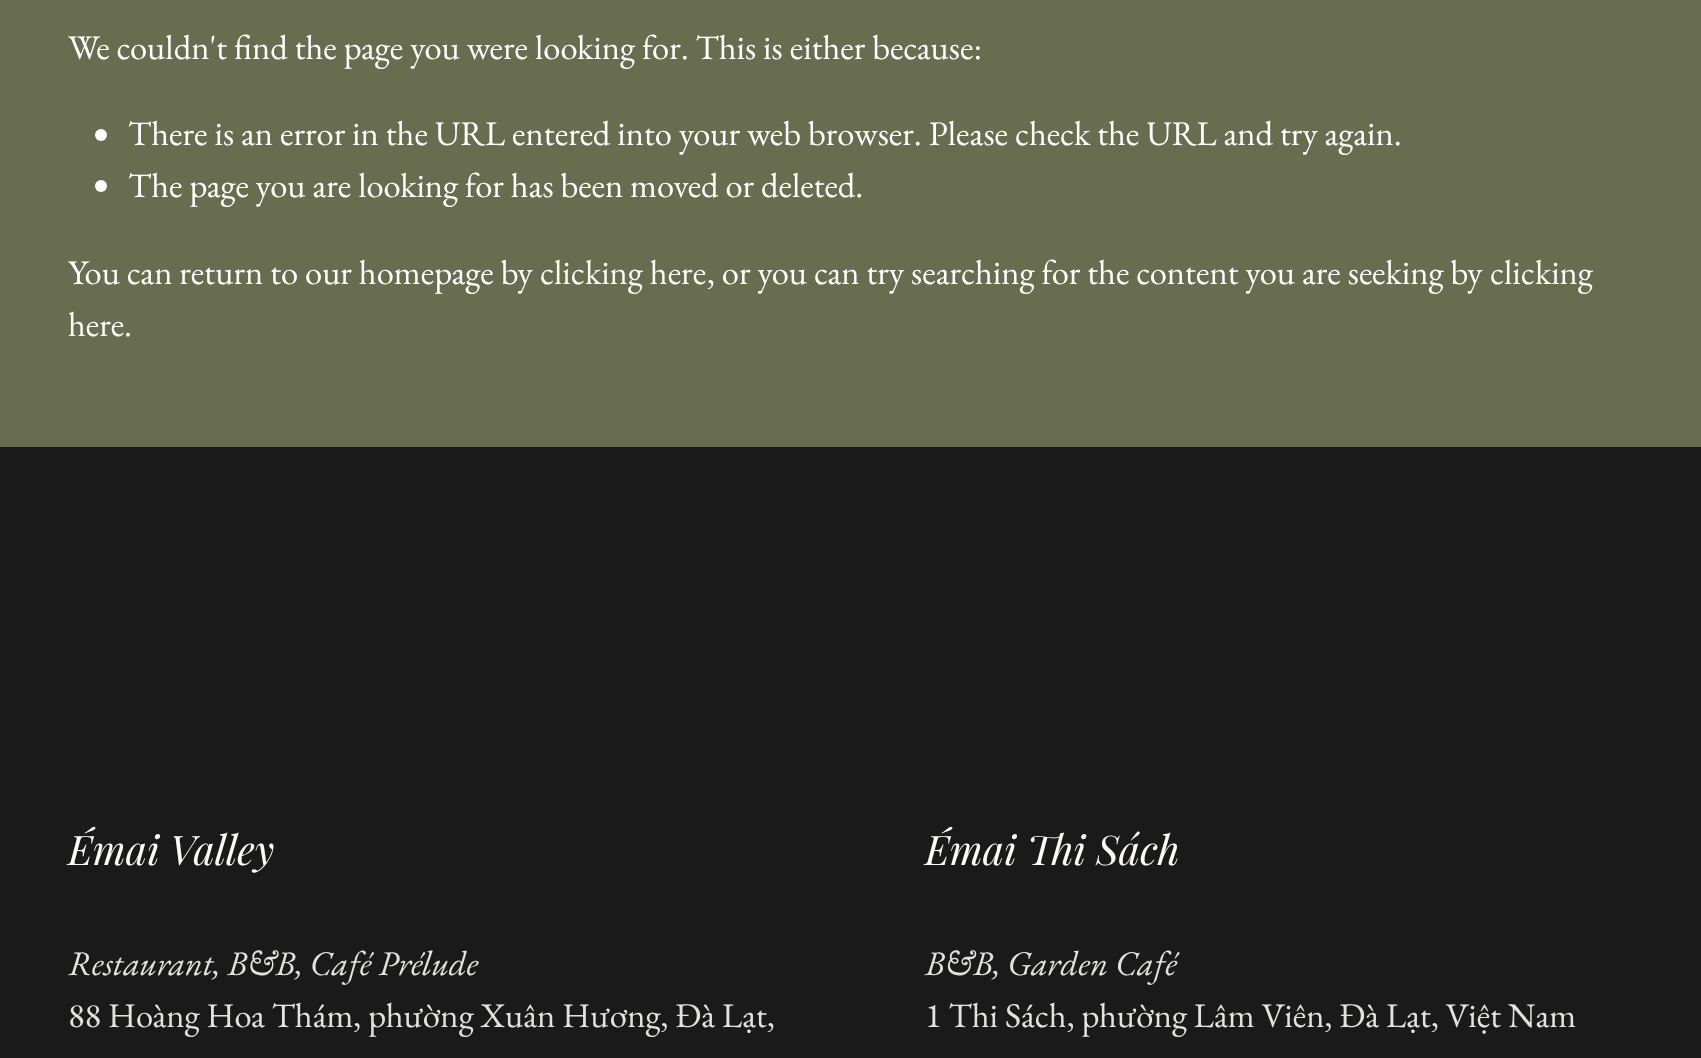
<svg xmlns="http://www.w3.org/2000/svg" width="1701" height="1058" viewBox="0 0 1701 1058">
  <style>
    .t1 { font: 34.6px EB Garamond; fill: #fff; }
    .t2 { font: 34.6px EB Garamond; fill: #fcfbf8; }
    .t3 { font: italic 40.75px Playfair Display; fill: #fcfbf8; }
    .t4 { font: italic 34.6px EB Garamond; fill: #e2e2df; }
    .t5 { font: 34.6px EB Garamond; fill: #e2e2df; }
  </style>
  <rect width="100%" height="100%" fill="#686d4f"/>
  <text x="68" y="59" class="t1">We couldn't find the page you were looking for. This is either because:</text>
  <circle cx="101" cy="135" r="6" fill="#fff"/>
  <text x="128" y="145" class="t1">There is an error in the URL entered into your web browser. Please check the URL and try again.</text>
  <circle cx="101" cy="186" r="6" fill="#fff"/>
  <text x="128" y="197" class="t1">The page you are looking for has been moved or deleted.</text>
  <text x="68" y="284" class="t1">You can return to our homepage by</text>
  <text x="540" y="284" class="t2">clicking here</text>
  <text x="707" y="284" class="t1">, or you can try searching for the content you are seeking by</text>
  <text x="1490" y="284" class="t2">clicking</text>
  <text x="68" y="336" class="t2">here</text>
  <text x="124" y="336" class="t1">.</text>
  <rect x="0" y="447" width="1701" height="611" fill="#1a1a1a"/>
  <text x="68" y="865" class="t3">Émai Valley</text>
  <text x="68" y="975" class="t4">Restaurant, B&amp;B, Café Prélude</text>
  <text x="68" y="1027" class="t5">88 Hoàng Hoa Thám, phường Xuân Hương, Đà Lạt,</text>
  <text x="925" y="865" class="t3">Émai Thi Sách</text>
  <text x="925" y="975" class="t4">B&amp;B, Garden Café</text>
  <text x="925" y="1027" class="t5">1 Thi Sách, phường Lâm Viên, Đà Lạt, Việt Nam</text>
</svg>
